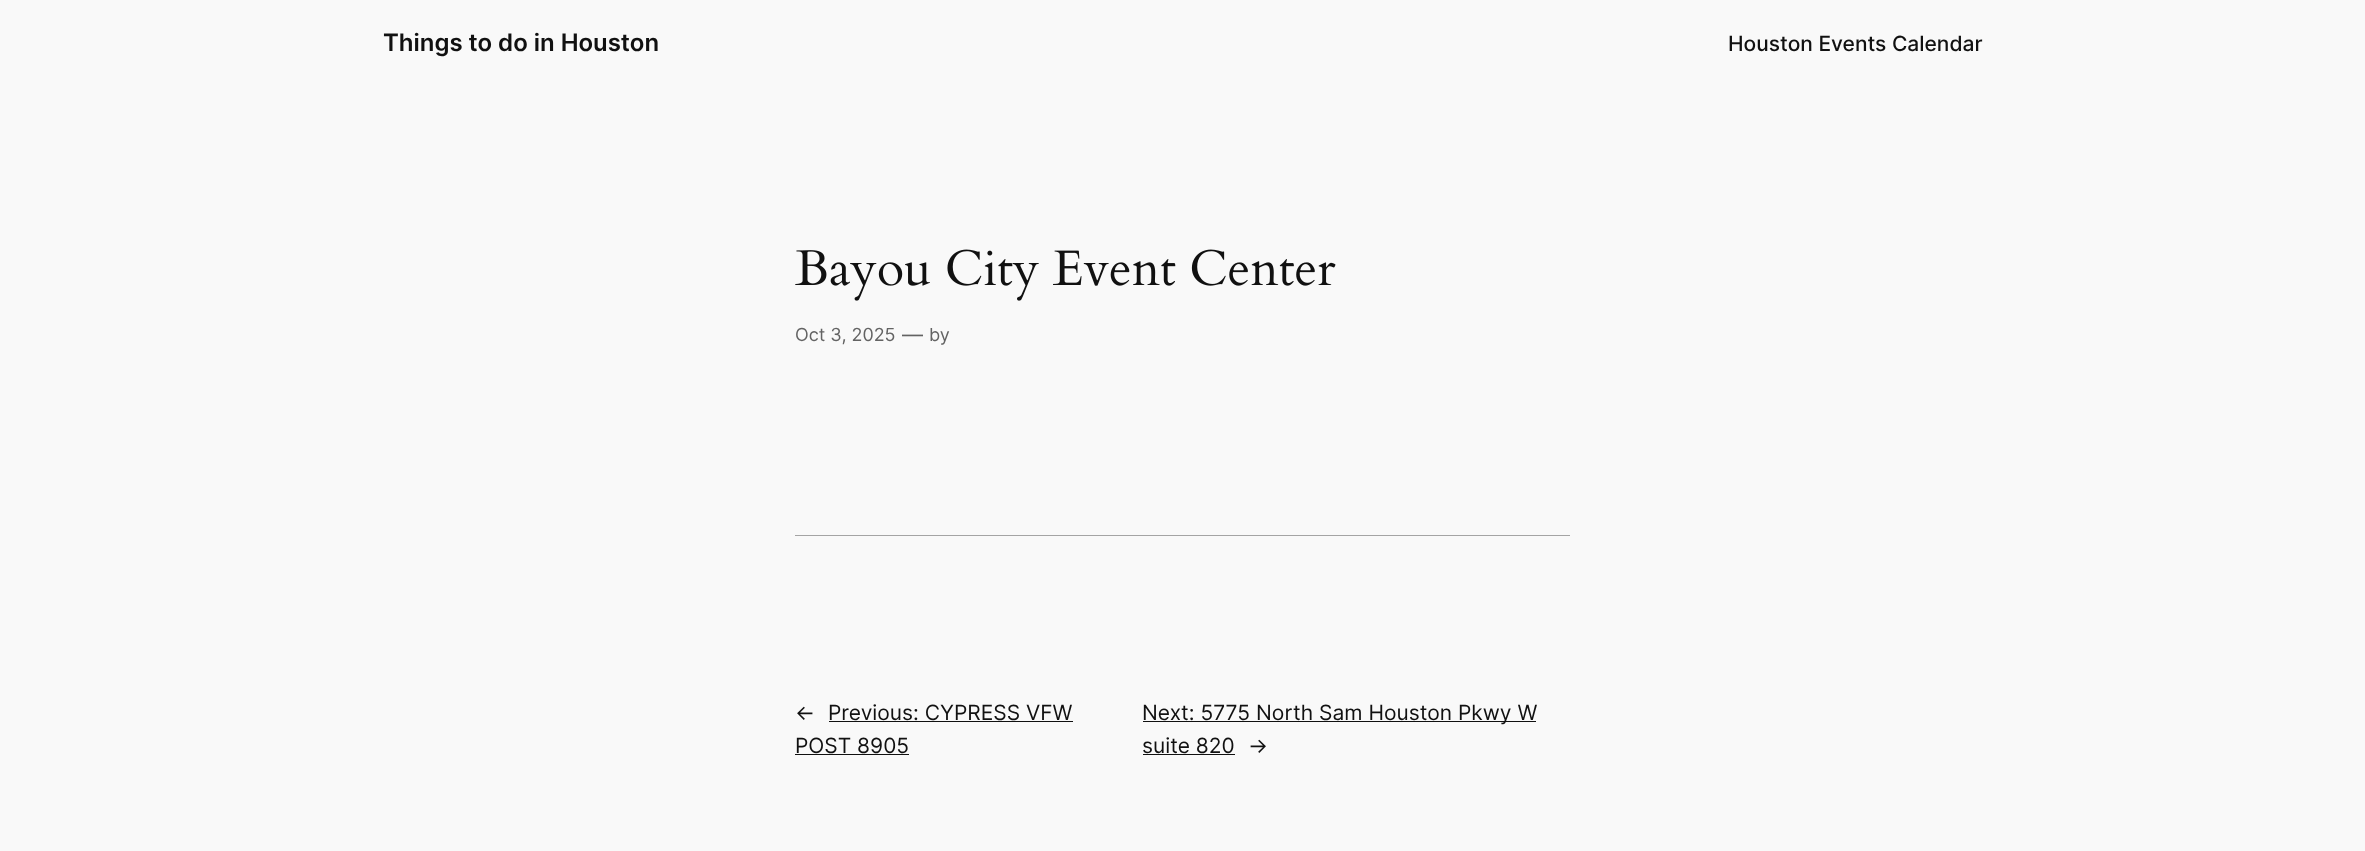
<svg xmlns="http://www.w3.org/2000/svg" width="2365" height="851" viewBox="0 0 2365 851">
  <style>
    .t1 { font: 600 24px Inter; fill: #111; }
    .t2 { font: 500 21px Inter; fill: #111; }
    .t3 { font: 18px Inter; fill: #636363; }
    .t4 { font: 21px Inter; fill: #636363; }
    .t5 { font: 21px Inter; fill: #111; }
  </style>
  <rect width="100%" height="100%" fill="#f9f9f9"/>
  <text x="383" y="51" class="t1">Things to do in Houston</text>
  <text x="1728" y="51" class="t2">Houston Events Calendar</text>
  <image x="795" y="249" width="541" height="52" href="images/1.png"/>
  <text x="795" y="341" class="t3">Oct 3, 2025</text>
  <text x="902" y="342" class="t4">—</text>
  <text x="929" y="341" class="t3">by</text>
  <rect x="795" y="535" width="775" height="1" fill="#a4a4a4"/>
  <text x="795" y="720" class="t5">←</text>
  <text x="828" y="720" class="t5">Previous: CYPRESS VFW</text>
  <rect x="829" y="721" width="244" height="1" fill="#111"/>
  <text x="795" y="753" class="t5">POST 8905</text>
  <rect x="795" y="754" width="114" height="1" fill="#111"/>
  <rect x="1143" y="721" width="393" height="1" fill="#111"/>
  <text x="1142" y="720" class="t5">Next: 5775 North Sam Houston Pkwy W</text>
  <text x="1142" y="753" class="t5">suite 820</text>
  <rect x="1143" y="754" width="92" height="1" fill="#111"/>
  <text x="1248" y="753" class="t5">→</text>
</svg>
